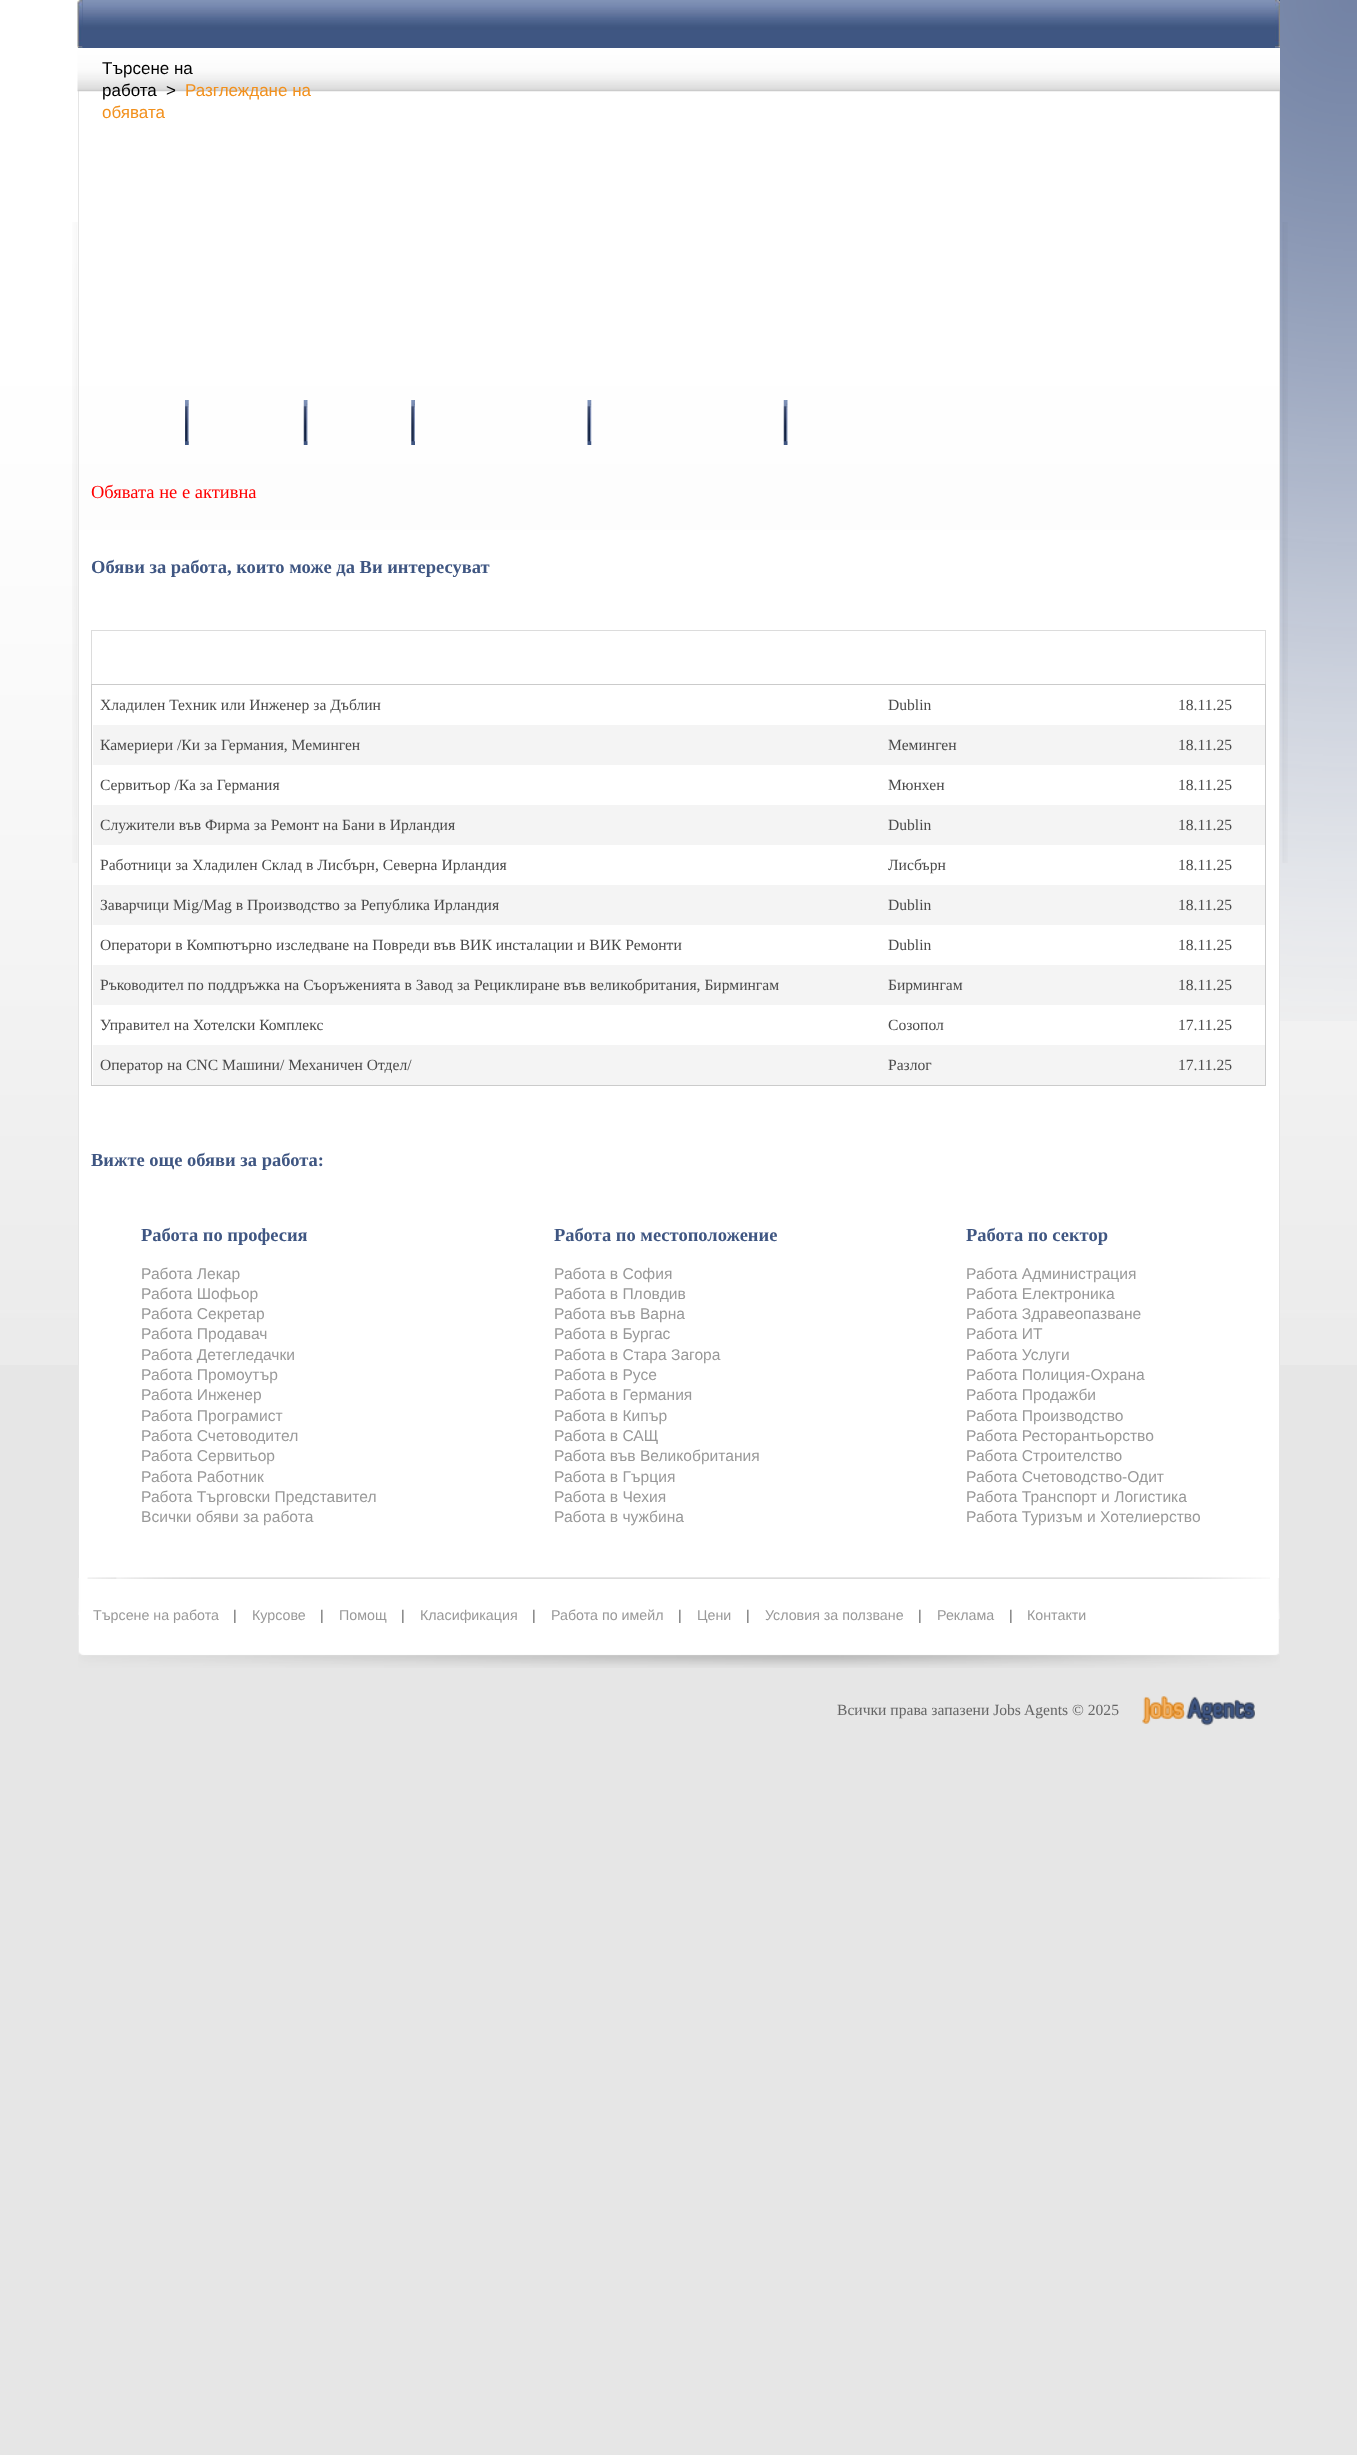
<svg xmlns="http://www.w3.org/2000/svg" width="1357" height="2455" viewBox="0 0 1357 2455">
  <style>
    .t1 { font: 17px Liberation Sans; fill: #000; }
    .t2 { font: 17px Liberation Sans; fill: #f2901c; }
    .t3 { font: 18.5px Liberation Serif; fill: #f00; }
    .t4 { font: bold 18.5px Liberation Serif; fill: #3f5682; }
    .t5 { font: 15.6px Liberation Serif; fill: #4b4b4b; }
    .t6 { font: 15.6px Liberation Sans; fill: #999; }
    .t7 { font: 14.25px Liberation Sans; fill: #999; }
    .t8 { font: 14.25px Liberation Sans; fill: #666; }
    .t9 { font: 15.6px Liberation Serif; fill: #666; }
  </style>
  <rect width="100%" height="100%" fill="#e6e6e6"/>
  <image x="0" y="0" width="1357" height="1365" href="images/1.png"/>
  <image x="1280" y="0" width="77" height="1021" href="images/2.png"/>
  <image x="72" y="222" width="1216" height="641" href="images/3.png"/>
  <rect x="1279" y="91" width="1" height="1274" fill="#e5e5e5"/>
  <rect x="78" y="91" width="1" height="1274" fill="#e5e5e5"/>
  <image x="77" y="47" width="1203" height="45" href="images/11.png"/>
  <rect x="78" y="0" width="1202" height="48" fill="#3f5683"/>
  <image x="77" y="0" width="6" height="48" href="images/4.png"/>
  <image x="1275" y="0" width="5" height="48" href="images/5.png"/>
  <image x="82" y="0" width="1193" height="47" href="images/6.png"/>
  <image x="185" y="400" width="4" height="45" href="images/7.png"/>
  <image x="303" y="400" width="5" height="45" href="images/8.png"/>
  <image x="411" y="400" width="4" height="45" href="images/9.png"/>
  <image x="587" y="400" width="5" height="45" href="images/10.png"/>
  <image x="783" y="400" width="5" height="45" href="images/8.png"/>
  <text x="102" y="74" class="t1">Търсене на</text>
  <text x="102" y="96" class="t1">работа</text>
  <text x="166" y="96" class="t1">&gt;</text>
  <text x="185" y="96" class="t2">Разглеждане на</text>
  <text x="102" y="118" class="t2">обявата</text>
  <rect x="79" y="530" width="1200" height="1048" fill="#fff"/>
  <text x="91" y="498" class="t3">Обявата не е активна</text>
  <text x="91" y="573" class="t4">Обяви за работа, които може да Ви интересуват</text>
  <rect x="91" y="630" width="1175" height="1" fill="#dcdcdc"/>
  <rect x="1265" y="630" width="1" height="54" fill="#dcdcdc"/>
  <rect x="91" y="630" width="1" height="54" fill="#dcdcdc"/>
  <rect x="91.5" y="684.5" width="1174" height="401" fill="none" stroke="#cbcbcb"/>
  <text x="100" y="710" class="t5">Хладилен Техник или Инженер за Дъблин</text>
  <text x="888" y="710" class="t5">Dublin</text>
  <text x="1178" y="710" class="t5">18.11.25</text>
  <rect x="93" y="725" width="1172" height="40" fill="#f4f4f4"/>
  <text x="100" y="750" class="t5">Камериери /Ки за Германия, Меминген</text>
  <text x="888" y="750" class="t5">Меминген</text>
  <text x="1178" y="750" class="t5">18.11.25</text>
  <text x="100" y="790" class="t5">Сервитьор /Ка за Германия</text>
  <text x="888" y="790" class="t5">Мюнхен</text>
  <text x="1178" y="790" class="t5">18.11.25</text>
  <rect x="93" y="805" width="1172" height="40" fill="#f4f4f4"/>
  <text x="100" y="830" class="t5">Служители във Фирма за Ремонт на Бани в Ирландия</text>
  <text x="888" y="830" class="t5">Dublin</text>
  <text x="1178" y="830" class="t5">18.11.25</text>
  <text x="100" y="870" class="t5">Работници за Хладилен Склад в Лисбърн, Северна Ирландия</text>
  <text x="888" y="870" class="t5">Лисбърн</text>
  <text x="1178" y="870" class="t5">18.11.25</text>
  <rect x="93" y="885" width="1172" height="40" fill="#f4f4f4"/>
  <text x="100" y="910" class="t5">Заварчици Mig/Mag в Производство за Република Ирландия</text>
  <text x="888" y="910" class="t5">Dublin</text>
  <text x="1178" y="910" class="t5">18.11.25</text>
  <text x="100" y="950" class="t5">Оператори в Компютърно изследване на Повреди във ВИК инсталации и ВИК Ремонти</text>
  <text x="888" y="950" class="t5">Dublin</text>
  <text x="1178" y="950" class="t5">18.11.25</text>
  <rect x="93" y="965" width="1172" height="40" fill="#f4f4f4"/>
  <text x="100" y="990" class="t5">Ръководител по поддръжка на Съоръженията в Завод за Рециклиране във великобритания, Бирмингам</text>
  <text x="888" y="990" class="t5">Бирмингам</text>
  <text x="1178" y="990" class="t5">18.11.25</text>
  <text x="100" y="1030" class="t5">Управител на Хотелски Комплекс</text>
  <text x="888" y="1030" class="t5">Созопол</text>
  <text x="1178" y="1030" class="t5">17.11.25</text>
  <rect x="93" y="1045" width="1172" height="40" fill="#f4f4f4"/>
  <text x="100" y="1070" class="t5">Оператор на CNC Машини/ Механичен Отдел/</text>
  <text x="888" y="1070" class="t5">Разлог</text>
  <text x="1178" y="1070" class="t5">17.11.25</text>
  <text x="91" y="1166" class="t4">Вижте още обяви за работа:</text>
  <text x="141" y="1241" class="t4">Работа по професия</text>
  <text x="141" y="1279" class="t6">Работа Лекар</text>
  <text x="141" y="1299" class="t6">Работа Шофьор</text>
  <text x="141" y="1319" class="t6">Работа Секретар</text>
  <text x="141" y="1339" class="t6">Работа Продавач</text>
  <text x="141" y="1360" class="t6">Работа Детегледачки</text>
  <text x="141" y="1380" class="t6">Работа Промоутър</text>
  <text x="141" y="1400" class="t6">Работа Инженер</text>
  <text x="141" y="1421" class="t6">Работа Програмист</text>
  <text x="141" y="1441" class="t6">Работа Счетоводител</text>
  <text x="141" y="1461" class="t6">Работа Сервитьор</text>
  <text x="141" y="1482" class="t6">Работа Работник</text>
  <text x="141" y="1502" class="t6">Работа Търговски Представител</text>
  <text x="141" y="1522" class="t6">Всички обяви за работа</text>
  <text x="554" y="1241" class="t4">Работа по местоположение</text>
  <text x="554" y="1279" class="t6">Работа в София</text>
  <text x="554" y="1299" class="t6">Работа в Пловдив</text>
  <text x="554" y="1319" class="t6">Работа във Варна</text>
  <text x="554" y="1339" class="t6">Работа в Бургас</text>
  <text x="554" y="1360" class="t6">Работа в Стара Загора</text>
  <text x="554" y="1380" class="t6">Работа в Русе</text>
  <text x="554" y="1400" class="t6">Работа в Германия</text>
  <text x="554" y="1421" class="t6">Работа в Кипър</text>
  <text x="554" y="1441" class="t6">Работа в САЩ</text>
  <text x="554" y="1461" class="t6">Работа във Великобритания</text>
  <text x="554" y="1482" class="t6">Работа в Гърция</text>
  <text x="554" y="1502" class="t6">Работа в Чехия</text>
  <text x="554" y="1522" class="t6">Работа в чужбина</text>
  <text x="966" y="1241" class="t4">Работа по сектор</text>
  <text x="966" y="1279" class="t6">Работа Администрация</text>
  <text x="966" y="1299" class="t6">Работа Електроника</text>
  <text x="966" y="1319" class="t6">Работа Здравеопазване</text>
  <text x="966" y="1339" class="t6">Работа ИТ</text>
  <text x="966" y="1360" class="t6">Работа Услуги</text>
  <text x="966" y="1380" class="t6">Работа Полиция-Охрана</text>
  <text x="966" y="1400" class="t6">Работа Продажби</text>
  <text x="966" y="1421" class="t6">Работа Производство</text>
  <text x="966" y="1441" class="t6">Работа Ресторантьорство</text>
  <text x="966" y="1461" class="t6">Работа Строителство</text>
  <text x="966" y="1482" class="t6">Работа Счетоводство-Одит</text>
  <text x="966" y="1502" class="t6">Работа Транспорт и Логистика</text>
  <text x="966" y="1522" class="t6">Работа Туризъм и Хотелиерство</text>
  <image x="78" y="1578" width="1202" height="90" href="images/12.png"/>
  <image x="87" y="1577" width="1183" height="2" href="images/13.png"/>
  <text x="93" y="1620" class="t7">Търсене на работа</text>
  <text x="233" y="1620" class="t8">|</text>
  <text x="252" y="1620" class="t7">Курсове</text>
  <text x="320" y="1620" class="t8">|</text>
  <text x="339" y="1620" class="t7">Помощ</text>
  <text x="401" y="1620" class="t8">|</text>
  <text x="420" y="1620" class="t7">Класификация</text>
  <text x="532" y="1620" class="t8">|</text>
  <text x="551" y="1620" class="t7">Работа по имейл</text>
  <text x="678" y="1620" class="t8">|</text>
  <text x="697" y="1620" class="t7">Цени</text>
  <text x="746" y="1620" class="t8">|</text>
  <text x="765" y="1620" class="t7">Условия за ползване</text>
  <text x="918" y="1620" class="t8">|</text>
  <text x="937" y="1620" class="t7">Реклама</text>
  <text x="1009" y="1620" class="t8">|</text>
  <text x="1027" y="1620" class="t7">Контакти</text>
  <text x="837" y="1715" class="t9">Всички права запазени Jobs Agents © 2025</text>
  <image x="1142" y="1696" width="113" height="30" href="images/14.png"/>
</svg>
